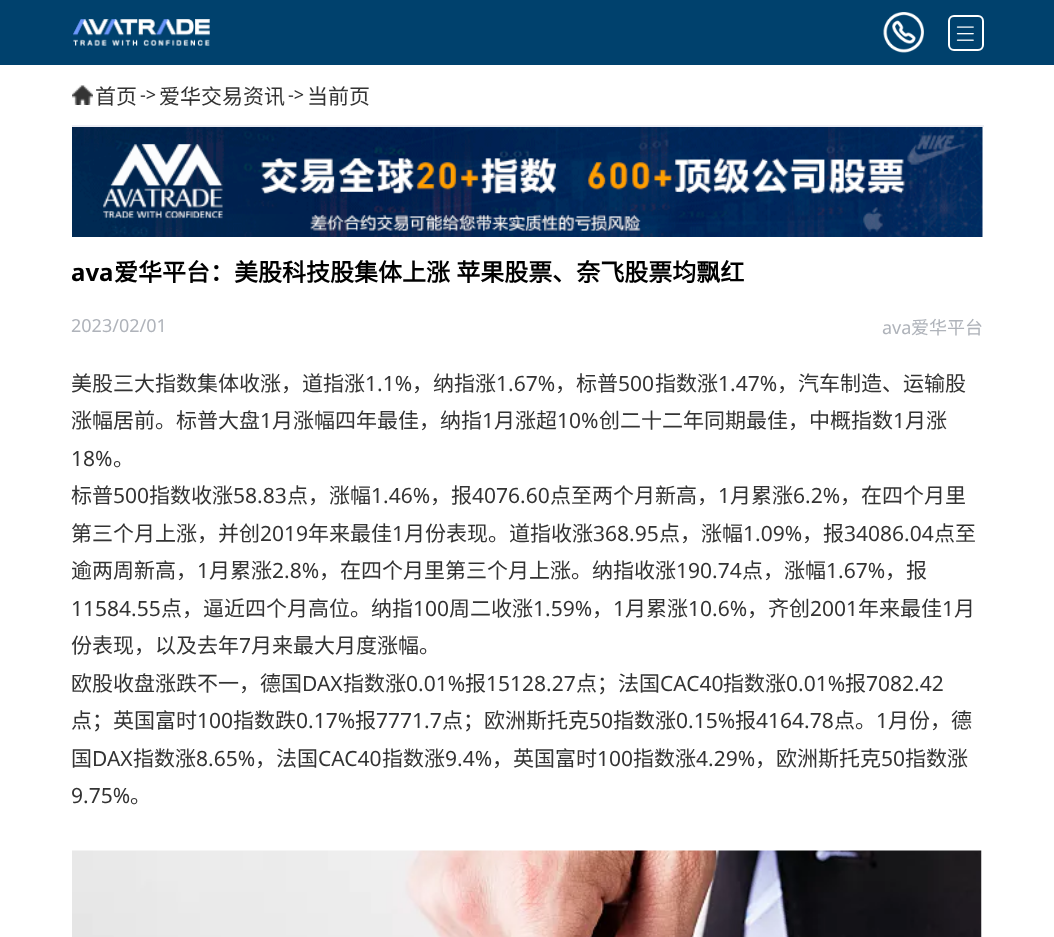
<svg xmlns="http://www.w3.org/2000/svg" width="1054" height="937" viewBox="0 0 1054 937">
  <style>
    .t1 { font: 21px Noto Sans CJK SC; fill: #333; }
    .t2 { font: 18px Noto Sans; fill: #333; }
    .t3 { font: bold 24px Noto Sans; fill: #000; }
    .t4 { font: bold 24px Noto Sans CJK SC; fill: #000; }
    .t5 { font: 18px Noto Sans; fill: #afb3ba; }
    .t6 { font: 18px Noto Sans CJK SC; fill: #afb3ba; }
    .t7 { font: 21px Noto Sans; fill: #333; }
  </style>
  <rect width="100%" height="100%" fill="#fff"/>
  <rect x="0" y="0" width="1054" height="65" fill="#00416d"/>
  <image x="73" y="19" width="137" height="27" href="images/1.png"/>
  <image x="883" y="12" width="41" height="41" href="images/2.png"/>
  <rect x="949" y="16" width="34" height="34" rx="5" fill="none" stroke="#fff" stroke-width="2"/>
  <image x="956" y="26" width="18" height="15" href="images/3.png"/>
  <rect x="72" y="125" width="912" height="2" fill="#edeef4"/>
  <image x="72" y="85" width="21" height="20" href="images/4.png"/>
  <text x="95" y="104" class="t1">首页</text>
  <text x="140" y="101" class="t2">-&gt;</text>
  <text x="159" y="104" class="t1">爱华交易资讯</text>
  <text x="288" y="101" class="t2">-&gt;</text>
  <text x="307" y="104" class="t1">当前页</text>
  <image x="72" y="127" width="911" height="110" href="images/5.png"/>
  <text x="71" y="281" class="t3">ava</text>
  <text x="114" y="281" word-spacing="1" class="t4">爱华平台：美股科技股集体上涨 苹果股票、奈飞股票均飘红</text>
  <text x="71" y="332" class="t5">2023/02/01</text>
  <text x="882" y="334" class="t5">ava</text>
  <text x="911" y="334" class="t6">爱华平台</text>
  <text x="71" y="391" class="t1">美股三大指数集体收涨，道指涨</text>
  <text x="365" y="391" class="t7">1.1%</text>
  <text x="412" y="391" class="t1">，纳指涨</text>
  <text x="496" y="391" class="t7">1.67%</text>
  <text x="555" y="391" class="t1">，标普</text>
  <text x="618" y="391" class="t7">500</text>
  <text x="655" y="391" class="t1">指数涨</text>
  <text x="718" y="391" class="t7">1.47%</text>
  <text x="777" y="391" class="t1">，汽车制造、运输股</text>
  <text x="71" y="428" class="t1">涨幅居前。标普大盘</text>
  <text x="260" y="428" class="t7">1</text>
  <text x="272" y="428" class="t1">月涨幅四年最佳，纳指</text>
  <text x="482" y="428" class="t7">1</text>
  <text x="494" y="428" class="t1">月涨超</text>
  <text x="557" y="428" class="t7">10%</text>
  <text x="599" y="428" class="t1">创二十二年同期最佳，中概指数</text>
  <text x="893" y="428" class="t7">1</text>
  <text x="905" y="428" class="t1">月涨</text>
  <text x="71" y="466" class="t7">18%</text>
  <text x="113" y="466" class="t1">。</text>
  <text x="71" y="503" class="t1">标普</text>
  <text x="113" y="503" class="t7">500</text>
  <text x="149" y="503" class="t1">指数收涨</text>
  <text x="233" y="503" class="t7">58.83</text>
  <text x="287" y="503" class="t1">点，涨幅</text>
  <text x="371" y="503" class="t7">1.46%</text>
  <text x="430" y="503" class="t1">，报</text>
  <text x="472" y="503" class="t7">4076.60</text>
  <text x="550" y="503" class="t1">点至两个月新高，</text>
  <text x="718" y="503" class="t7">1</text>
  <text x="730" y="503" class="t1">月累涨</text>
  <text x="793" y="503" class="t7">6.2%</text>
  <text x="840" y="503" class="t1">，在四个月里</text>
  <text x="71" y="541" class="t1">第三个月上涨，并创</text>
  <text x="260" y="541" class="t7">2019</text>
  <text x="308" y="541" class="t1">年来最佳</text>
  <text x="392" y="541" class="t7">1</text>
  <text x="404" y="541" class="t1">月份表现。道指收涨</text>
  <text x="593" y="541" class="t7">368.95</text>
  <text x="659" y="541" class="t1">点，涨幅</text>
  <text x="743" y="541" class="t7">1.09%</text>
  <text x="802" y="541" class="t1">，报</text>
  <text x="844" y="541" class="t7">34086.04</text>
  <text x="934" y="541" class="t1">点至</text>
  <text x="71" y="578" class="t1">逾两周新高，</text>
  <text x="197" y="578" class="t7">1</text>
  <text x="209" y="578" class="t1">月累涨</text>
  <text x="272" y="578" class="t7">2.8%</text>
  <text x="319" y="578" class="t1">，在四个月里第三个月上涨。纳指收涨</text>
  <text x="676" y="578" class="t7">190.74</text>
  <text x="742" y="578" class="t1">点，涨幅</text>
  <text x="826" y="578" class="t7">1.67%</text>
  <text x="885" y="578" class="t1">，报</text>
  <text x="71" y="616" class="t7">11584.55</text>
  <text x="161" y="616" class="t1">点，逼近四个月高位。纳指</text>
  <text x="413" y="616" class="t7">100</text>
  <text x="449" y="616" class="t1">周二收涨</text>
  <text x="533" y="616" class="t7">1.59%</text>
  <text x="592" y="616" class="t1">，</text>
  <text x="613" y="616" class="t7">1</text>
  <text x="625" y="616" class="t1">月累涨</text>
  <text x="688" y="616" class="t7">10.6%</text>
  <text x="747" y="616" class="t1">，齐创</text>
  <text x="810" y="616" class="t7">2001</text>
  <text x="858" y="616" class="t1">年来最佳</text>
  <text x="942" y="616" class="t7">1</text>
  <text x="954" y="616" class="t1">月</text>
  <text x="71" y="653" class="t1">份表现，以及去年</text>
  <text x="239" y="653" class="t7">7</text>
  <text x="251" y="653" class="t1">月来最大月度涨幅。</text>
  <text x="71" y="691" class="t1">欧股收盘涨跌不一，德国</text>
  <text x="302" y="691" class="t7">DAX</text>
  <text x="343" y="691" class="t1">指数涨</text>
  <text x="406" y="691" class="t7">0.01%</text>
  <text x="465" y="691" class="t1">报</text>
  <text x="486" y="691" class="t7">15128.27</text>
  <text x="576" y="691" class="t1">点；法国</text>
  <text x="660" y="691" class="t7">CAC40</text>
  <text x="723" y="691" class="t1">指数涨</text>
  <text x="786" y="691" class="t7">0.01%</text>
  <text x="845" y="691" class="t1">报</text>
  <text x="866" y="691" class="t7">7082.42</text>
  <text x="71" y="728" class="t1">点；英国富时</text>
  <text x="197" y="728" class="t7">100</text>
  <text x="233" y="728" class="t1">指数跌</text>
  <text x="296" y="728" class="t7">0.17%</text>
  <text x="355" y="728" class="t1">报</text>
  <text x="376" y="728" class="t7">7771.7</text>
  <text x="442" y="728" class="t1">点；欧洲斯托克</text>
  <text x="589" y="728" class="t7">50</text>
  <text x="613" y="728" class="t1">指数涨</text>
  <text x="676" y="728" class="t7">0.15%</text>
  <text x="735" y="728" class="t1">报</text>
  <text x="756" y="728" class="t7">4164.78</text>
  <text x="834" y="728" class="t1">点。</text>
  <text x="876" y="728" class="t7">1</text>
  <text x="888" y="728" class="t1">月份，德</text>
  <text x="71" y="766" class="t1">国</text>
  <text x="92" y="766" class="t7">DAX</text>
  <text x="133" y="766" class="t1">指数涨</text>
  <text x="196" y="766" class="t7">8.65%</text>
  <text x="255" y="766" class="t1">，法国</text>
  <text x="318" y="766" class="t7">CAC40</text>
  <text x="382" y="766" class="t1">指数涨</text>
  <text x="445" y="766" class="t7">9.4%</text>
  <text x="492" y="766" class="t1">，英国富时</text>
  <text x="597" y="766" class="t7">100</text>
  <text x="633" y="766" class="t1">指数涨</text>
  <text x="696" y="766" class="t7">4.29%</text>
  <text x="755" y="766" class="t1">，欧洲斯托克</text>
  <text x="881" y="766" class="t7">50</text>
  <text x="905" y="766" class="t1">指数涨</text>
  <text x="71" y="803" class="t7">9.75%</text>
  <text x="130" y="803" class="t1">。</text>
  <image x="72" y="850" width="910" height="87" href="images/6.png"/>
</svg>
